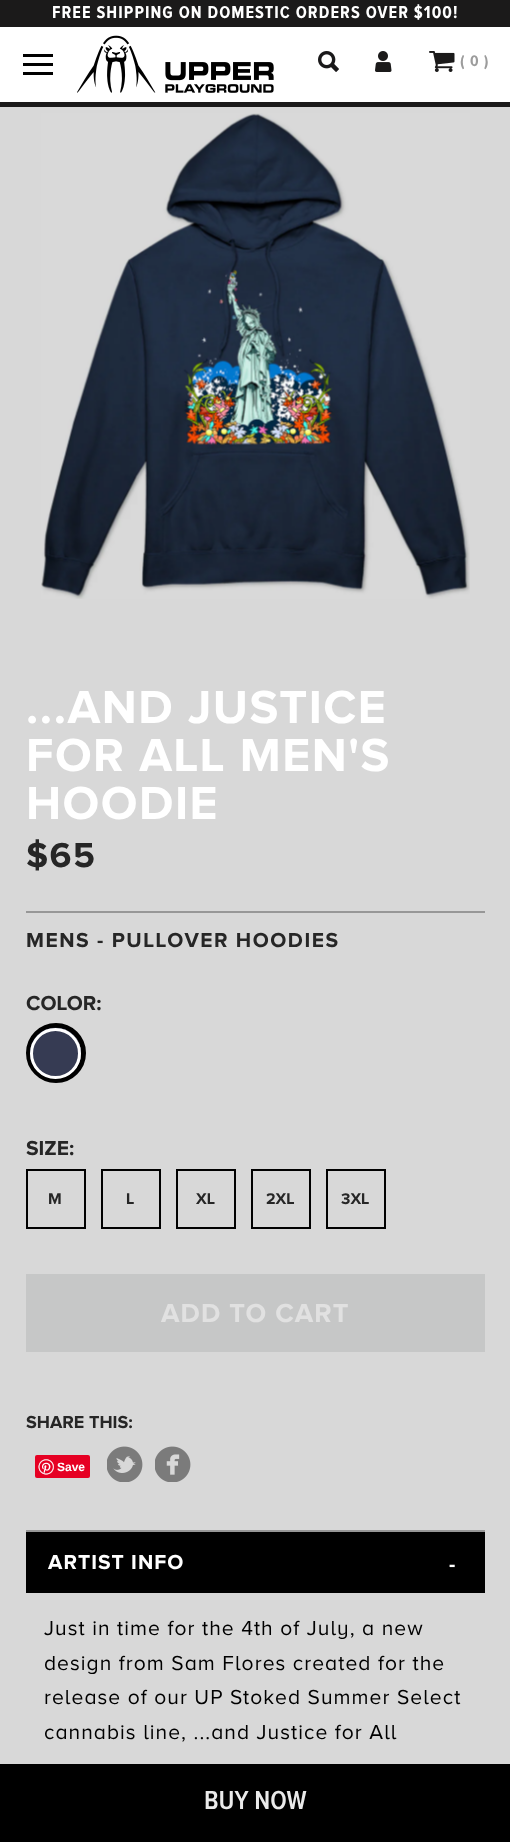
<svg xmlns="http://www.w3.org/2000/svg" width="510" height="1842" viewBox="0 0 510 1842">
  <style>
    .t1 { font: bold 17.85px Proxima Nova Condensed; letter-spacing: 1.05px; fill: #fff; }
    .t2 { font: bold 16px Proxima Nova Condensed; letter-spacing: 1.05px; fill: #9c9c9c; }
    .t3 { font: bold 48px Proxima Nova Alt; letter-spacing: 1.5px; fill: #fff; }
    .t4 { font: bold 36px Proxima Nova Alt; letter-spacing: 1.5px; fill: #262626; }
    .t5 { font: bold 21px Proxima Nova Alt; letter-spacing: 1.5px; fill: #262626; }
    .t6 { font: bold 21px Proxima Nova Alt; fill: #262626; }
    .t7 { font: bold 16px Proxima Nova Alt; fill: #262626; }
    .t8 { font: bold 18px Proxima Nova Alt; fill: #262626; }
    .t9 { font: bold 12px Liberation Sans; fill: #fff; }
    .t10 { font: bold 27px Proxima Nova Alt; letter-spacing: 1.05px; fill: #e1e1e1; }
    .t11 { font: 600 27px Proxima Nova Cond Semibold; fill: #eaeaea; }
    .t12 { font: bold 21px Proxima Nova Alt; letter-spacing: 1.05px; fill: #fff; }
    .t13 { font: 21px Proxima Nova Alt; letter-spacing: 1.05px; fill: #000; }
  </style>
  <rect width="100%" height="100%" fill="#d8d8d8"/>
  <rect x="0" y="27" width="510" height="75" fill="#fff"/>
  <rect x="0" y="102" width="510" height="5" fill="#1b1a1a"/>
  <rect x="0" y="0" width="510" height="27" fill="#1b1a1a"/>
  <text x="52" y="18" class="t1">FREE SHIPPING ON DOMESTIC ORDERS OVER $100!</text>
  <rect x="23" y="54" width="30" height="3" fill="#000"/>
  <rect x="23" y="63" width="30" height="3" fill="#000"/>
  <rect x="23" y="72" width="30" height="3" fill="#000"/>
  <image x="77" y="35" width="197" height="58" href="images/1.png"/>
  <image x="318" y="51" width="21" height="21" href="images/2.png"/>
  <image x="375" y="51" width="17" height="21" href="images/3.png"/>
  <image x="429" y="51" width="26" height="21" href="images/4.png"/>
  <text x="460" y="66" class="t2">( 0 )</text>
  <image x="41" y="113" width="429" height="486" href="images/5.png"/>
  <text x="26" y="723" class="t3">...AND JUSTICE</text>
  <text x="26" y="771" class="t3">FOR ALL MEN'S</text>
  <text x="26" y="819" class="t3">HOODIE</text>
  <rect x="26" y="911" width="459" height="2" fill="#979797"/>
  <text x="26" y="867" class="t4">$65</text>
  <text x="26" y="947" class="t5">MENS - PULLOVER HOODIES</text>
  <text x="26" y="1010" class="t6">COLOR:</text>
  <circle cx="56" cy="1053" r="27.5" fill="none" stroke="#000" stroke-width="5"/>
  <image x="30" y="1027" width="51" height="52" href="images/6.png"/>
  <circle cx="55.5" cy="1053.5" r="24" fill="none" stroke="#fff" stroke-width="3"/>
  <text x="26" y="1155" class="t6">SIZE:</text>
  <rect x="27" y="1170" width="58" height="58" fill="none" stroke="#000" stroke-width="2"/>
  <text x="48" y="1204" class="t7">M</text>
  <rect x="102" y="1170" width="58" height="58" fill="none" stroke="#000" stroke-width="2"/>
  <text x="126" y="1204" class="t7">L</text>
  <rect x="177" y="1170" width="58" height="58" fill="none" stroke="#000" stroke-width="2"/>
  <text x="196" y="1204" class="t7">XL</text>
  <rect x="252" y="1170" width="58" height="58" fill="none" stroke="#000" stroke-width="2"/>
  <text x="266" y="1204" class="t7">2XL</text>
  <rect x="327" y="1170" width="58" height="58" fill="none" stroke="#000" stroke-width="2"/>
  <text x="341" y="1204" class="t7">3XL</text>
  <text x="26" y="1428" class="t8">SHARE THIS:</text>
  <rect x="35" y="1455" width="55" height="23" rx="2" fill="#e60023"/>
  <image x="38" y="1459" width="16" height="16" href="images/7.png"/>
  <text x="57" y="1471" class="t9">Save</text>
  <image x="107" y="1446" width="36" height="36" href="images/8.png"/>
  <image x="155" y="1446" width="36" height="36" href="images/9.png"/>
  <rect x="26" y="1274" width="459" height="78" fill="#c6c7c7"/>
  <text x="161" y="1322" class="t10">ADD TO CART</text>
  <rect x="0" y="1764" width="510" height="78" fill="#000"/>
  <text x="204" y="1809" class="t11">BUY NOW</text>
  <rect x="26" y="1532" width="459" height="61" fill="#000"/>
  <rect x="26" y="1530" width="459" height="2" fill="#979797"/>
  <text x="48" y="1569" class="t12">ARTIST INFO</text>
  <text x="449" y="1571" class="t12">-</text>
  <text x="44" y="1635" class="t13">Just in time for the 4th of July, a new</text>
  <text x="44" y="1670" class="t13">design from Sam Flores created for the</text>
  <text x="44" y="1704" class="t13">release of our UP Stoked Summer Select</text>
  <text x="44" y="1739" class="t13">cannabis line, ...and Justice for All</text>
</svg>
